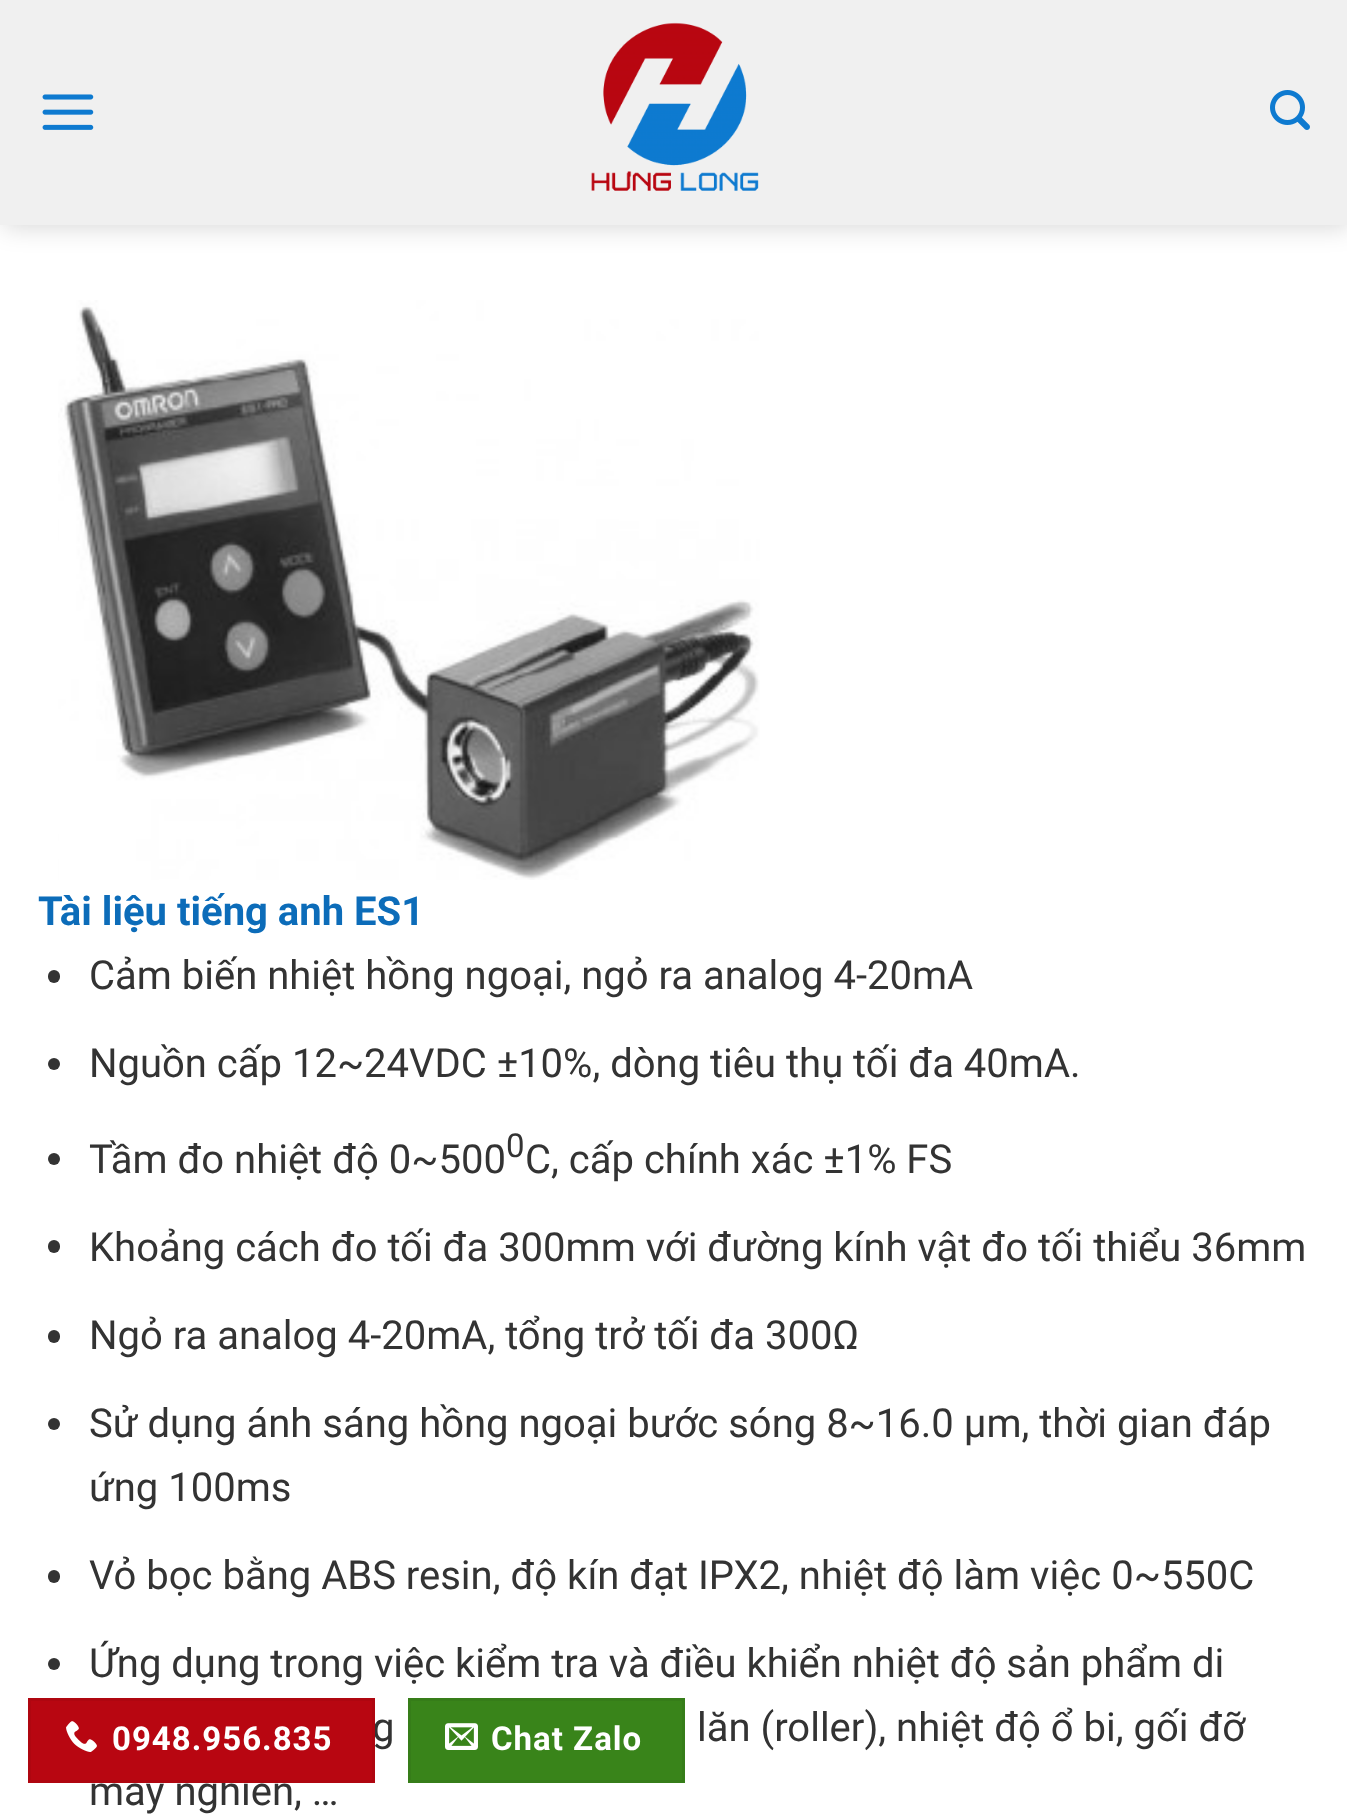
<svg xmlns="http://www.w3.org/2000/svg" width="1347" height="1816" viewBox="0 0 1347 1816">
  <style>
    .t1 { font: bold 40px Roboto; fill: #0c6cb9; }
    .t2 { font: 40px Roboto; fill: #333; }
    .t3 { font: 33px Roboto; fill: #333; }
    .t4 { font: bold 33px Roboto; letter-spacing: 1px; fill: #fff; }
  </style>
  <rect width="100%" height="100%" fill="#fff"/>
  <rect x="3" y="3" width="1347" height="225" fill="#00000026" filter="blur(12.5px)"/>
  <rect x="0" y="0" width="1347" height="225" fill="#f0f0f0"/>
  <image x="42" y="94" width="52" height="36" href="images/1.png"/>
  <image x="591" y="22" width="168" height="169" href="images/2.png"/>
  <image x="1270" y="90" width="40" height="40" href="images/3.png"/>
  <image x="58" y="300" width="702" height="580" href="images/4.png"/>
  <text x="38" y="925" class="t1">Tài liệu tiếng anh ES1</text>
  <rect x="48" y="970" width="12" height="13" rx="6" fill="#333"/>
  <text x="89" y="989" class="t2">Cảm biến nhiệt hồng ngoại, ngỏ ra analog 4-20mA</text>
  <circle cx="54" cy="1064" r="6" fill="#333"/>
  <text x="89" y="1077" class="t2">Nguồn cấp 12~24VDC ±10%, dòng tiêu thụ tối đa 40mA.</text>
  <circle cx="54" cy="1159" r="6" fill="#333"/>
  <text x="89" y="1173" class="t2">Tầm đo nhiệt độ 0~500</text>
  <text x="506" y="1157" class="t3">0</text>
  <text x="525" y="1173" class="t2">C, cấp chính xác ±1% FS</text>
  <rect x="48" y="1240" width="12" height="13" rx="6" fill="#333"/>
  <text x="89" y="1261" class="t2">Khoảng cách đo tối đa 300mm với đường kính vật đo tối thiểu 36mm</text>
  <rect x="48" y="1330" width="12" height="13" rx="6" fill="#333"/>
  <text x="89" y="1349" class="t2">Ngỏ ra analog 4-20mA, tổng trở tối đa 300Ω</text>
  <circle cx="54" cy="1424" r="6" fill="#333"/>
  <text x="89" y="1437" class="t2">Sử dụng ánh sáng hồng ngoại bước sóng 8~16.0 μm, thời gian đáp</text>
  <text x="89" y="1501" class="t2">ứng 100ms</text>
  <rect x="48" y="1570" width="12" height="13" rx="6" fill="#333"/>
  <text x="89" y="1589" class="t2">Vỏ bọc bằng ABS resin, độ kín đạt IPX2, nhiệt độ làm việc 0~550C</text>
  <circle cx="54" cy="1664" r="6" fill="#333"/>
  <text x="89" y="1677" class="t2">Ứng dụng trong việc kiểm tra và điều khiển nhiệt độ sản phẩm di</text>
  <text x="372" y="1741" class="t2">g</text>
  <text x="697" y="1741" class="t2">lăn (roller), nhiệt độ ổ bi, gối đỡ</text>
  <text x="89" y="1805" class="t2">máy nghiền, …</text>
  <rect x="29.5" y="1699.5" width="344" height="82" fill="#b80611" stroke="#af0610" stroke-width="3"/>
  <image x="66" y="1721" width="31" height="31" href="images/5.png"/>
  <text x="112" y="1750" class="t4">0948.956.835</text>
  <rect x="409.5" y="1699.5" width="274" height="82" fill="#39841a" stroke="#367d19" stroke-width="3"/>
  <image x="445" y="1723" width="33" height="27" href="images/6.png"/>
  <text x="491" y="1750" class="t4">Chat Zalo</text>
</svg>
